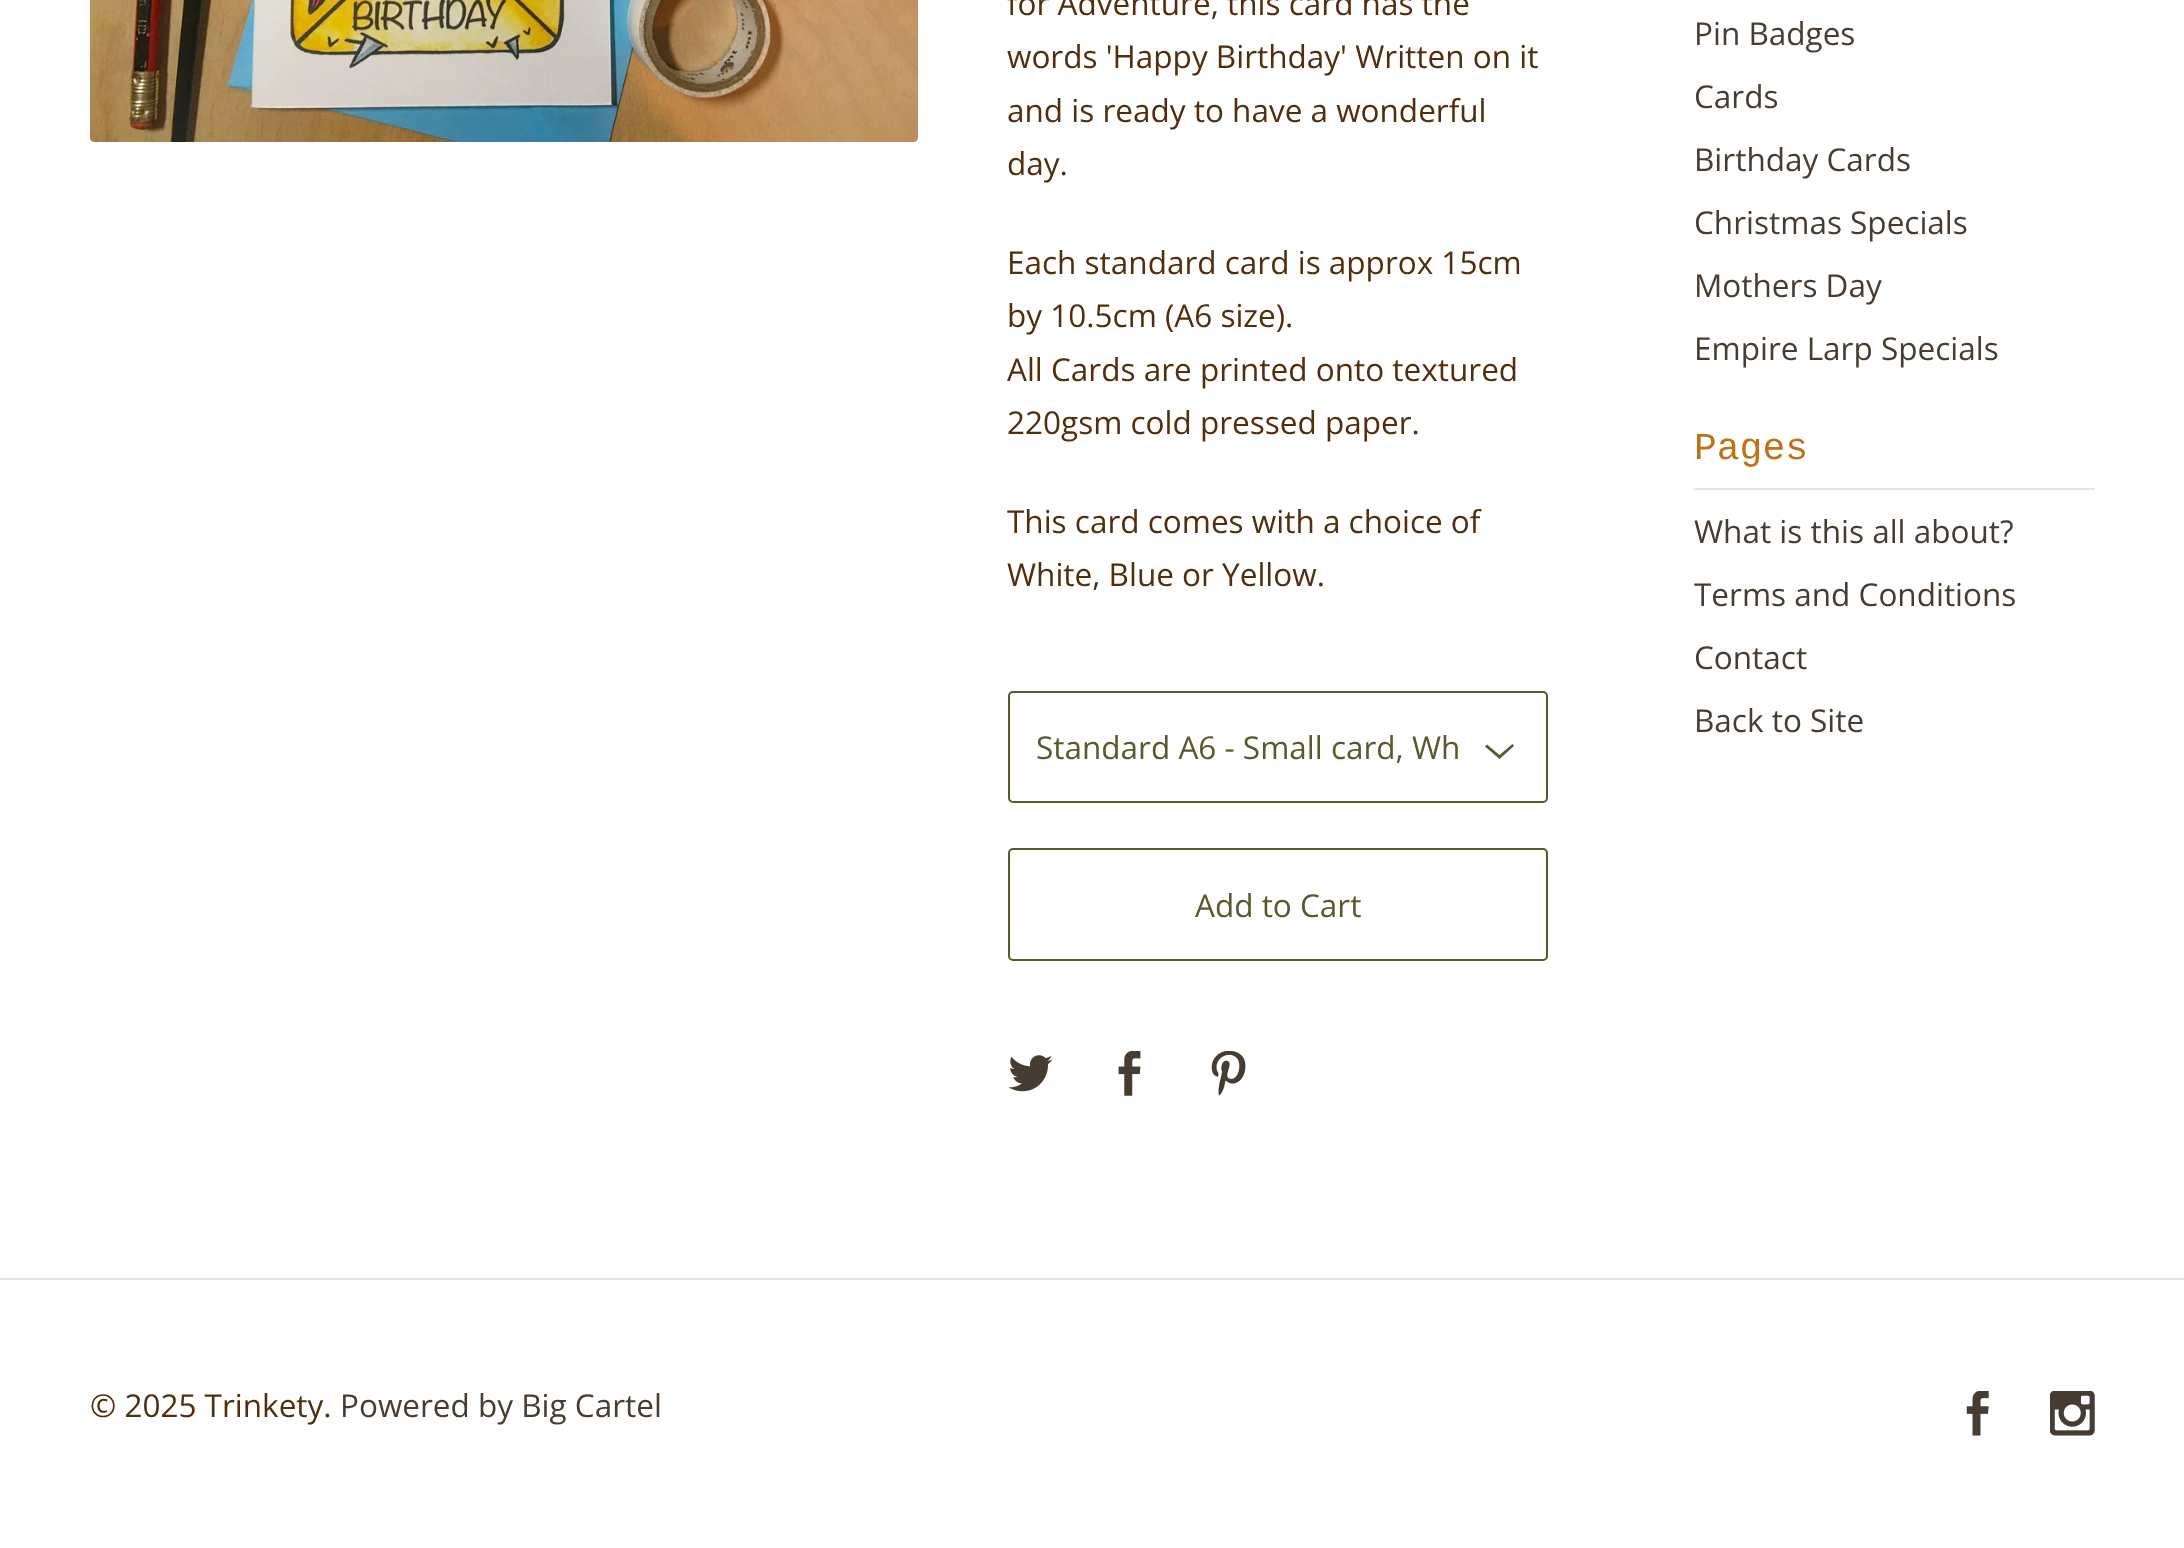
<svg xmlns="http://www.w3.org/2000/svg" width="2184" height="1548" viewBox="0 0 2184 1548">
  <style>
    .t1 { font: 31.5px Open Sans; fill: #522e0c; }
    .t2 { font: 31.5px Open Sans; fill: #59592b; }
    .t3 { font: 31.5px Open Sans; fill: #473c32; }
    .t4 { font: 38px Liberation Mono; fill: #bd7313; }
  </style>
  <rect width="100%" height="100%" fill="#fff"/>
  <image x="90" y="0" width="828" height="142" href="images/1.png"/>
  <text x="1007" y="15" class="t1">for Adventure, this card has the</text>
  <text x="1007" y="68" class="t1">words 'Happy Birthday' Written on it</text>
  <text x="1007" y="122" class="t1">and is ready to have a wonderful</text>
  <text x="1007" y="175" class="t1">day.</text>
  <text x="1007" y="274" class="t1">Each standard card is approx 15cm</text>
  <text x="1007" y="327" class="t1">by 10.5cm (A6 size).</text>
  <text x="1007" y="381" class="t1">All Cards are printed onto textured</text>
  <text x="1007" y="434" class="t1">220gsm cold pressed paper.</text>
  <text x="1007" y="533" class="t1">This card comes with a choice of</text>
  <text x="1007" y="586" class="t1">White, Blue or Yellow.</text>
  <rect x="1009" y="692" width="538" height="110" rx="4" fill="none" stroke="#59592b" stroke-width="2"/>
  <text x="1036" y="759" class="t2">Standard A6 - Small card, Wh</text>
  <path d="M1514 746L1499.5 759L1485 746.5L1487 744.5L1499.5 755L1512.5 744Z" fill="#59592b"/>
  <rect x="1009" y="849" width="538" height="111" rx="4" fill="none" stroke="#59592b" stroke-width="2"/>
  <text x="1195" y="917" class="t2">Add to Cart</text>
  <image x="1008" y="1055" width="45" height="37" href="images/2.png"/>
  <image x="1118" y="1051" width="23" height="45" href="images/3.png"/>
  <image x="1211" y="1051" width="35" height="45" href="images/4.png"/>
  <text x="1694" y="45" class="t3">Pin Badges</text>
  <text x="1694" y="108" class="t3">Cards</text>
  <text x="1694" y="171" class="t3">Birthday Cards</text>
  <text x="1694" y="234" class="t3">Christmas Specials</text>
  <text x="1694" y="297" class="t3">Mothers Day</text>
  <text x="1694" y="360" class="t3">Empire Larp Specials</text>
  <rect x="1694" y="488" width="401" height="2" fill="#e5e5e5"/>
  <text x="1694" y="459" class="t4">Pages</text>
  <text x="1694" y="543" class="t3">What is this all about?</text>
  <text x="1694" y="606" class="t3">Terms and Conditions</text>
  <text x="1694" y="669" class="t3">Contact</text>
  <text x="1694" y="732" class="t3">Back to Site</text>
  <rect x="0" y="1278" width="2184" height="2" fill="#e5e5e5"/>
  <text x="90" y="1417" class="t1">© 2025 Trinkety.</text>
  <text x="340" y="1417" class="t3">Powered by Big Cartel</text>
  <image x="1966" y="1391" width="23" height="45" href="images/5.png"/>
  <image x="2050" y="1391" width="45" height="45" href="images/6.png"/>
</svg>
